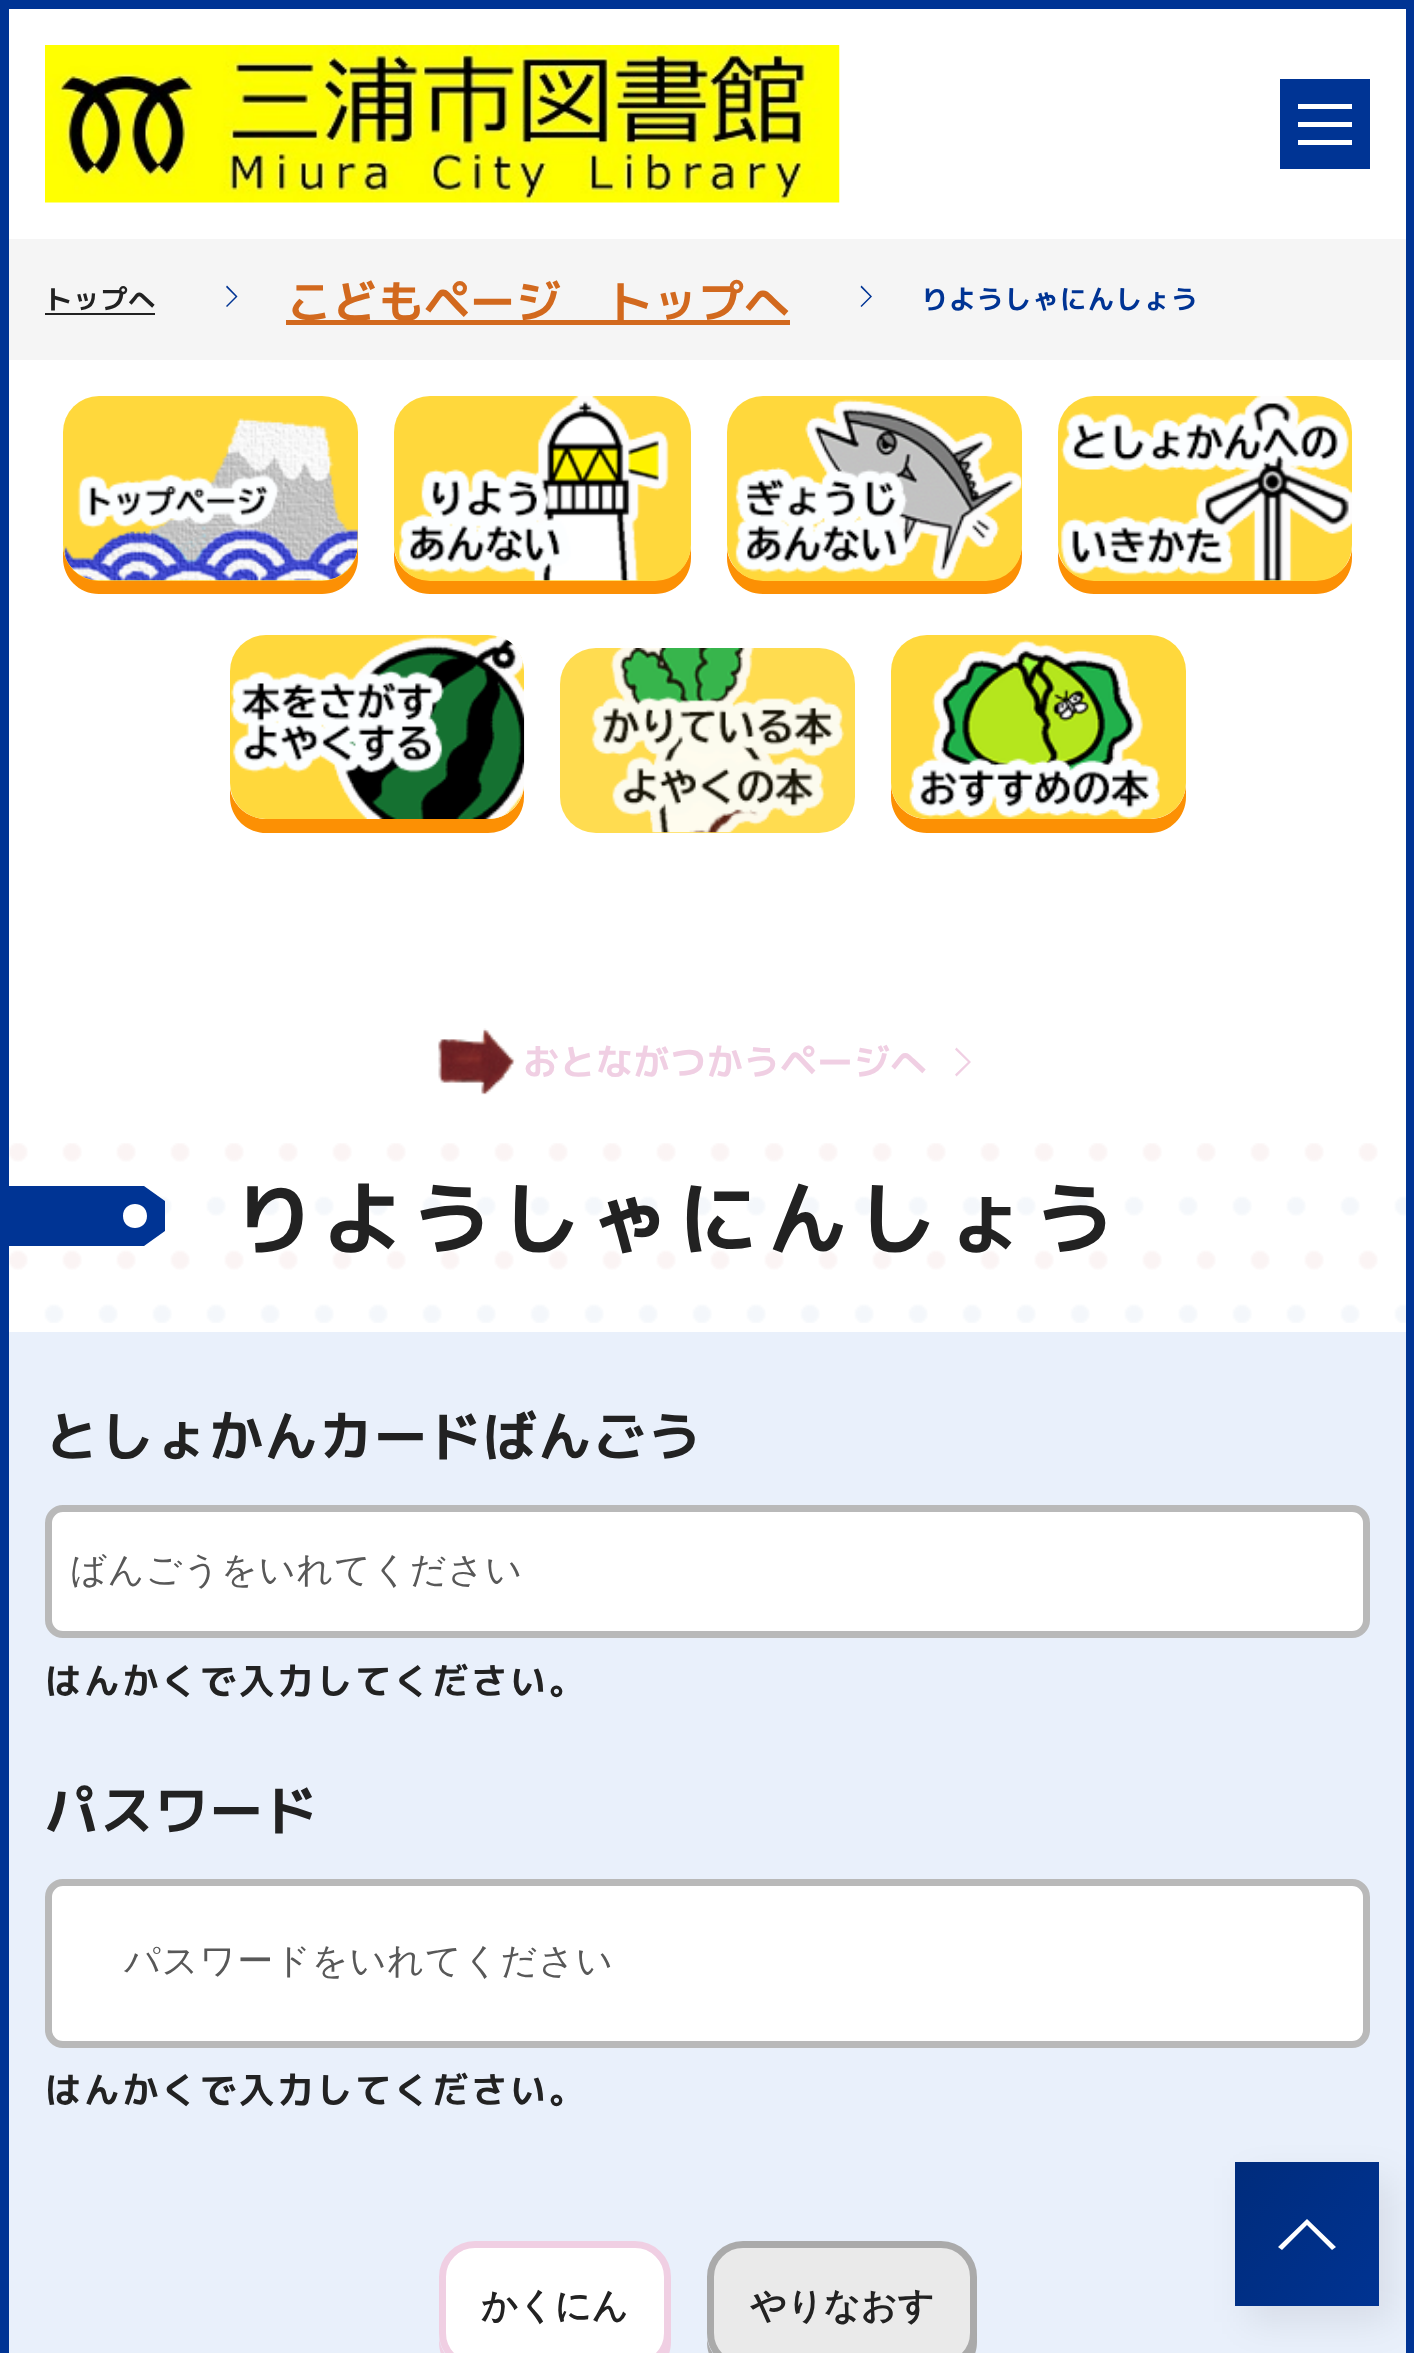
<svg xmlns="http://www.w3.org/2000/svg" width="1414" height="2353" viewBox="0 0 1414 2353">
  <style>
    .t1 { font: bold 27px 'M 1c'; letter-spacing: 0.75px; fill: #222; }
    .t2 { font: bold 45px 'M 1c'; letter-spacing: 0.75px; fill: #d2691e; }
    .t3 { font: bold 27px 'M 1c'; letter-spacing: 0.75px; fill: #003494; }
    .t4 { font: bold 36px 'M 1c'; letter-spacing: 0.75px; fill: #f0cfe3; }
    .t5 { font: bold 81px 'M 1c'; letter-spacing: 8px; fill: #222; }
    .t6 { font: bold 54px 'M 1c'; letter-spacing: 0.75px; fill: #222; }
    .t7 { font: 500 36px WenQuanYi Zen Hei; letter-spacing: 0.9px; fill: #585858; }
    .t8 { font: bold 36px 'M 1c'; letter-spacing: 2.75px; fill: #222; }
    .t9 { font: bold 36px WenQuanYi Zen Hei; fill: #222; }
  </style>
  <defs>
    <clipPath id="clip1"><rect x="9" y="239" width="1397" height="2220"/></clipPath>
    <linearGradient id="g1" gradientUnits="userSpaceOnUse" x1="1225" y1="2177" x2="1389" y2="2292"><stop offset="0" stop-color="#002c7c"/><stop offset="1" stop-color="#003392"/></linearGradient>
  </defs>
  <rect width="100%" height="100%" fill="#fff"/>
  <rect x="4.5" y="4.5" width="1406" height="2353" fill="none" stroke="#003494" stroke-width="9"/>
  <image x="45" y="45" width="795" height="158" href="images/1.png"/>
  <rect x="1280" y="79" width="90" height="90" fill="#003494"/>
  <rect x="1298" y="122" width="54" height="5" fill="#fff"/>
  <rect x="1298" y="104" width="54" height="5" fill="#fff"/>
  <rect x="1298" y="140" width="54" height="5" fill="#fff"/>
  <rect x="9" y="239" width="1397" height="121" fill="#f5f5f5"/>
  <text x="45" y="309" class="t1">トップへ</text>
  <rect x="45" y="313" width="110" height="2" fill="#222"/>
  <path d="M237.5 296.5L227 285.5L226 287L235.5 296.5L226 306L227 307Z" fill="#003494"/>
  <rect x="286" y="320" width="504" height="5" fill="#d2691e"/>
  <text x="287" y="318" class="t2">こどもページ　トップへ</text>
  <path d="M872 296.5L861.5 285.5L860.5 287L870 296.5L860.5 306L861.5 307Z" fill="#003494"/>
  <text x="921" y="309" class="t3">りようしゃにんしょう</text>
  <path d="M63 544V558C63 578 79 594 99 594H322C342 594 358 578 358 558V442V544C358 564 342 580 322 580H99C79 580 63 564 63 544Z" fill="#fc9004"/>
  <rect x="63" y="396" width="295" height="185" rx="36" fill="#ffd83c"/>
  <image x="64" y="418" width="294" height="163" href="images/2.png"/>
  <path d="M394 549V558C394 578 410 594 430 594H655C675 594 691 578 691 558V442V544C691 564 675 580 655 580H430C411 580 396 567 394 549Z" fill="#fc9004"/>
  <rect x="394" y="396" width="297" height="185" rx="36" fill="#ffd83c"/>
  <image x="399" y="396" width="270" height="185" href="images/3.png"/>
  <path d="M727 549V558C727 578 743 594 763 594H986C1006 594 1022 578 1022 558V446V440V544C1022 564 1005 580 986 580H763C744 580 729 567 727 549Z" fill="#fc9004"/>
  <rect x="727" y="396" width="295" height="185" rx="36" fill="#ffd83c"/>
  <image x="735" y="399" width="287" height="182" href="images/4.png"/>
  <path d="M1058 551V558C1058 578 1074 594 1094 594H1316C1336 594 1352 578 1352 558V549C1350 567 1335 580 1316 580H1094C1076 580 1061 568 1058 551Z" fill="#fc9004"/>
  <rect x="1058" y="396" width="294" height="185" rx="36" fill="#ffd83c"/>
  <image x="1060" y="396" width="292" height="185" href="images/5.png"/>
  <path d="M230 789V797C230 817 246 833 266 833H488C508 833 524 817 524 797V787C522 805 507 819 488 819H266C248 819 233 806 230 789Z" fill="#fc9004"/>
  <rect x="230" y="635" width="294" height="184" rx="36" fill="#ffd83c"/>
  <image x="231" y="636" width="294" height="183" href="images/6.png"/>
  <rect x="560" y="648" width="295" height="185" rx="36" fill="#ffdc50"/>
  <image x="591" y="648" width="254" height="185" href="images/7.png"/>
  <path d="M891 783V797C891 817 907 833 927 833H1150C1170 833 1186 817 1186 797V680V783C1186 803 1170 819 1150 819H927C907 819 891 803 891 783Z" fill="#fc9004"/>
  <rect x="891" y="635" width="295" height="184" rx="36" fill="#ffd83c"/>
  <image x="909" y="639" width="251" height="180" href="images/8.png"/>
  <image x="438" y="1028" width="78" height="67" href="images/9.png"/>
  <text x="523" y="1075" class="t4">おとながつかうページへ</text>
  <path d="M971 1062L956.5 1047.5L955 1049.5L968 1062L955 1074.5L956.5 1076.5Z" fill="#f0cfe3"/>
  <image x="9" y="1143" width="1397" height="180" href="images/10.png"/>
  <g clip-path="url(#clip1)">
    <path d="M165 1231V1201L144 1186H-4V1246H144ZM123 1216C123 1200 147 1200 147 1216C147 1232 123 1232 123 1216Z" fill="#003494"/>
  </g>
  <text x="233" y="1248" class="t5">りようしゃにんしょう</text>
  <rect x="9" y="1332" width="1397" height="1021" fill="#e9f0fb"/>
  <text x="45" y="1456" class="t6">としょかんカードばんごう</text>
  <rect x="48.5" y="1508.5" width="1318" height="126" rx="14.5" fill="#fff" stroke="#b9b9b9" stroke-width="7"/>
  <text x="70" y="1582" class="t7">ばんごうをいれてください</text>
  <text x="45" y="1694" class="t8">はんかくで入力してください。</text>
  <text x="45" y="1830" class="t6">パスワード</text>
  <rect x="48.5" y="1882.5" width="1318" height="162" rx="14.5" fill="#fff" stroke="#b9b9b9" stroke-width="7"/>
  <text x="124" y="1973" class="t7">パスワードをいれてください</text>
  <text x="45" y="2103" class="t8">はんかくで入力してください。</text>
  <path d="M439 2338V2342C439 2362 455 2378 475 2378H635C655 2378 671 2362 671 2342V2286L670 2280V2333C670 2353 654 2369 634 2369H475C456 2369 441 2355 439 2338Z" fill="#f0cfe3"/>
  <rect x="442.5" y="2244.5" width="225" height="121" rx="32.5" fill="#fff" stroke="#f0cfe3" stroke-width="7"/>
  <text x="481" y="2318" class="t9">かくにん</text>
  <path d="M707 2339V2342C707 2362 723 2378 743 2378H941C961 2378 977 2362 977 2342V2286L976 2280V2333C976 2353 960 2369 940 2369H742C725 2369 710 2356 707 2339Z" fill="#aaa"/>
  <rect x="710.5" y="2244.5" width="263" height="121" rx="32.5" fill="#eaeaea" stroke="#aaa" stroke-width="7"/>
  <text x="750" y="2318" class="t9">やりなおす</text>
  <rect x="1247" y="2178" width="144" height="144" fill="#00000014" filter="blur(18px)"/>
  <rect x="1235" y="2162" width="144" height="144" fill="url(#g1)"/>
  <path d="M1307 2219L1278 2247L1282 2250L1307 2225L1332 2250L1336 2247Z" fill="#fff"/>
</svg>
